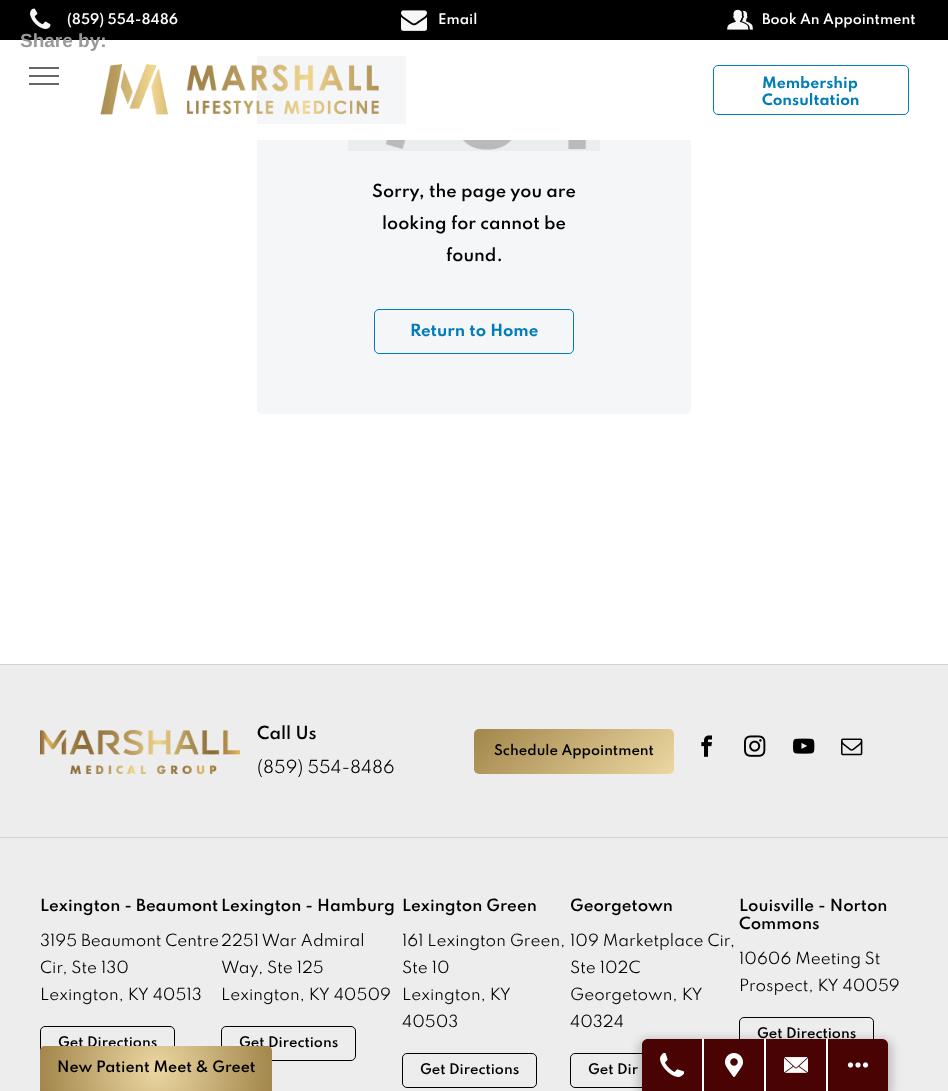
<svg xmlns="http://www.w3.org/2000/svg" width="948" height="1091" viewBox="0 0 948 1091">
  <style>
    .t1 { font: 600 13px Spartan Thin; fill: #fff; }
    .t2 { font: bold 14px Spartan Thin; fill: #027db9; }
    .t3 { font: 600 16px Spartan Thin; fill: #000; }
    .t4 { font: bold 15px Spartan Thin; fill: #027db9; }
    .t5 { font: 16px Spartan Thin; fill: #000; }
    .t6 { font: 600 13px Spartan Thin; fill: #000; }
    .t7 { font: 600 15px Spartan Thin; fill: #000; }
    .t8 { font: 15px Spartan Thin; fill: #000; }
    .t9 { font: 600 14px Spartan Thin; fill: #000; }
    .t10 { font: bold 19px Liberation Sans; fill: #999; }
  </style>
  <defs>
    <linearGradient id="g1" gradientUnits="userSpaceOnUse" x1="513" y1="690" x2="635" y2="813"><stop offset="0" stop-color="#a2864b"/><stop offset="1" stop-color="#ecd7a2"/></linearGradient>
    <radialGradient id="g2" gradientUnits="userSpaceOnUse" cx="156" cy="1069" r="118"><stop offset="0" stop-color="#ecd7a2"/><stop offset="1" stop-color="#a2864b"/></radialGradient>
  </defs>
  <rect width="100%" height="100%" fill="#fff"/>
  <rect x="29" y="67" width="30" height="2" fill="#666"/>
  <rect x="29" y="75" width="30" height="2" fill="#666"/>
  <rect x="29" y="83" width="30" height="2" fill="#666"/>
  <rect x="257" y="-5" width="434" height="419" rx="5" fill="#f5f6f7"/>
  <rect x="257" y="40" width="434" height="100" fill="#fff"/>
  <rect x="0" y="0" width="948" height="40" fill="#000"/>
  <image x="30" y="8" width="21" height="21" href="images/1.png"/>
  <text x="67" y="24" class="t1">(859) 554-8486</text>
  <image x="401" y="10" width="26" height="21" href="images/2.png"/>
  <text x="438" y="24" class="t1">Email</text>
  <image x="727" y="9" width="26" height="21" href="images/3.png"/>
  <text x="762" y="24" class="t1">Book An Appointment</text>
  <image x="100" y="56" width="306" height="68" href="images/4.png"/>
  <rect x="713.5" y="65.5" width="195" height="49" rx="4.5" fill="none" stroke="#027db9"/>
  <text x="762" y="88" class="t2">Membership</text>
  <text x="762" y="105" class="t2">Consultation</text>
  <image x="348" y="140" width="252" height="11" href="images/5.png"/>
  <text x="372" y="197" class="t3">Sorry, the page you are</text>
  <text x="382" y="229" class="t3">looking for cannot be</text>
  <text x="446" y="261" class="t3">found.</text>
  <rect x="374.5" y="309.5" width="199" height="44" rx="4.5" fill="none" stroke="#027db9"/>
  <text x="410" y="336" class="t4">Return to Home</text>
  <rect x="0" y="665" width="948" height="172" fill="#ededed"/>
  <rect x="0" y="664" width="948" height="1" fill="#d2d2d2"/>
  <image x="40" y="730" width="200" height="44" href="images/6.png"/>
  <text x="257" y="739" class="t3">Call Us</text>
  <text x="257" y="773" class="t5">(859) 554-8486</text>
  <rect x="474" y="729" width="200" height="45" rx="5" fill="url(#g1)"/>
  <text x="494" y="755" class="t6">Schedule Appointment</text>
  <image x="701" y="735" width="11" height="22" href="images/7.png"/>
  <image x="744" y="735" width="22" height="22" href="images/8.png"/>
  <image x="793" y="738" width="22" height="16" href="images/9.png"/>
  <image x="841" y="738" width="22" height="18" href="images/10.png"/>
  <rect x="0" y="838" width="948" height="253" fill="#ededed"/>
  <rect x="0" y="837" width="948" height="1" fill="#d2d2d2"/>
  <text x="40" y="911" class="t7">Lexington - Beaumont</text>
  <text x="40" y="946" class="t8">3195 Beaumont Centre</text>
  <text x="40" y="973" class="t8">Cir, Ste 130</text>
  <text x="40" y="1000" class="t8">Lexington, KY 40513</text>
  <rect x="40.5" y="1026.5" width="134" height="34" rx="4.5" fill="none" stroke="#000"/>
  <text x="58" y="1047" class="t6">Get Directions</text>
  <text x="221" y="911" class="t7">Lexington - Hamburg</text>
  <text x="221" y="946" class="t8">2251 War Admiral</text>
  <text x="221" y="973" class="t8">Way, Ste 125</text>
  <text x="221" y="1000" class="t8">Lexington, KY 40509</text>
  <rect x="221.5" y="1026.5" width="134" height="34" rx="4.5" fill="none" stroke="#000"/>
  <text x="239" y="1047" class="t6">Get Directions</text>
  <text x="402" y="911" class="t7">Lexington Green</text>
  <text x="402" y="946" class="t8">161 Lexington Green,</text>
  <text x="402" y="973" class="t8">Ste 10</text>
  <text x="402" y="1000" class="t8">Lexington, KY</text>
  <text x="402" y="1027" class="t8">40503</text>
  <rect x="402.5" y="1053.5" width="134" height="34" rx="4.5" fill="none" stroke="#000"/>
  <text x="420" y="1074" class="t6">Get Directions</text>
  <text x="570" y="911" class="t7">Georgetown</text>
  <text x="570" y="946" class="t8">109 Marketplace Cir,</text>
  <text x="570" y="973" class="t8">Ste 102C</text>
  <text x="570" y="1000" class="t8">Georgetown, KY</text>
  <text x="570" y="1027" class="t8">40324</text>
  <rect x="570.5" y="1053.5" width="134" height="34" rx="4.5" fill="none" stroke="#000"/>
  <text x="588" y="1074" class="t6">Get Dir</text>
  <text x="739" y="911" class="t7">Louisville - Norton</text>
  <text x="739" y="929" class="t7">Commons</text>
  <text x="739" y="964" class="t8">10606 Meeting St</text>
  <text x="739" y="991" class="t8">Prospect, KY 40059</text>
  <rect x="739.5" y="1017.5" width="134" height="34" rx="4.5" fill="none" stroke="#000"/>
  <text x="757" y="1038" class="t6">Get Directions</text>
  <path d="M45 1046H267C270 1046 272 1048 272 1051V1091H40V1051C40 1048 42 1046 45 1046Z" fill="url(#g2)"/>
  <text x="57" y="1072" class="t9">New Patient Meet &amp; Greet</text>
  <text x="20" y="47" class="t10">Share by:</text>
  <rect x="638" y="1039" width="254" height="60" rx="10" fill="#00000033" filter="blur(5px)"/>
  <rect x="702" y="1039" width="2" height="52" fill="#fff"/>
  <path d="M648 1039H702V1091H642V1045C642 1041.5 644.5 1039 648 1039Z" fill="#4a0303"/>
  <image x="660" y="1053" width="24" height="24" href="images/11.png"/>
  <rect x="764" y="1039" width="2" height="52" fill="#fff"/>
  <rect x="704" y="1039" width="60" height="52" fill="#4a0303"/>
  <image x="725" y="1053" width="18" height="24" href="images/12.png"/>
  <rect x="826" y="1039" width="2" height="52" fill="#fff"/>
  <rect x="766" y="1039" width="60" height="52" fill="#4a0303"/>
  <image x="784" y="1057" width="24" height="16" href="images/13.png"/>
  <path d="M828 1039H882C885.5 1039 888 1041.5 888 1045V1091H828Z" fill="#4a0303"/>
  <image x="847" y="1062" width="22" height="6" href="images/14.png"/>
</svg>
